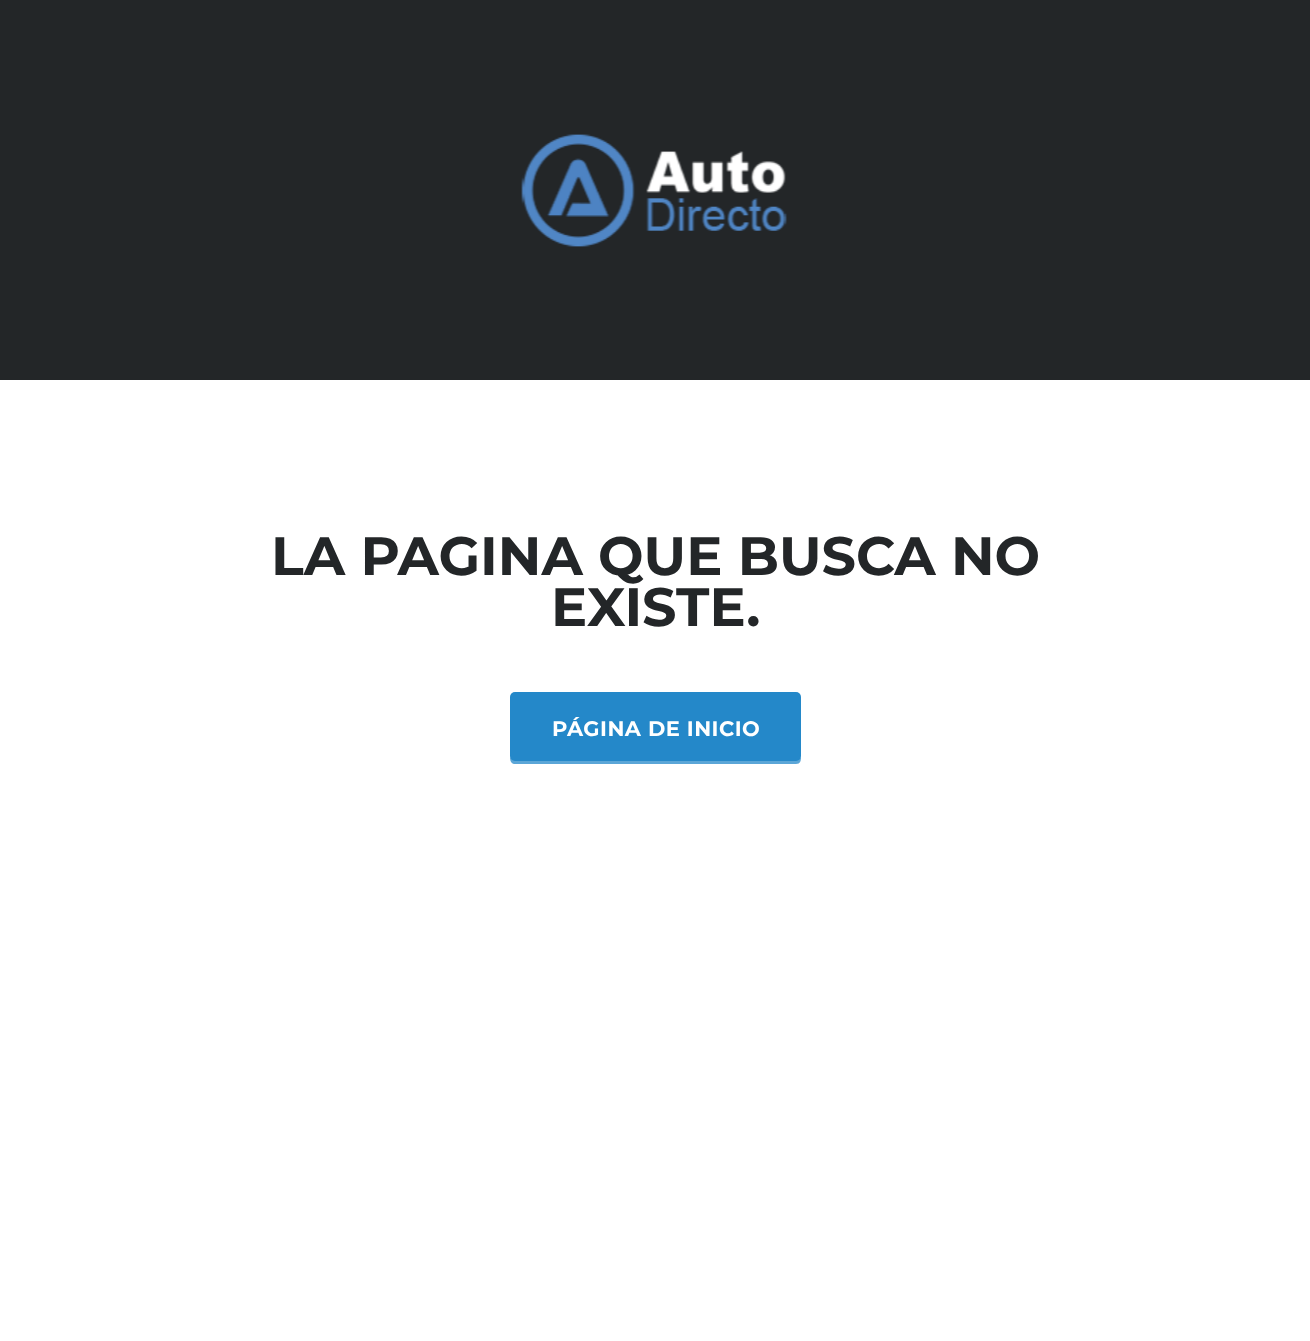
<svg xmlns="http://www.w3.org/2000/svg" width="1310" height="1341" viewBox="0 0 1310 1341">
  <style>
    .t1 { font: bold 54px Montserrat; fill: #232628; }
    .t2 { font: bold 21px Montserrat; letter-spacing: 0.5px; fill: #fff; }
  </style>
  <rect width="100%" height="100%" fill="#fff"/>
  <rect x="0" y="0" width="1310" height="380" fill="#232628"/>
  <image x="521" y="134" width="266" height="113" href="images/1.png"/>
  <text x="271" y="575" class="t1">LA PAGINA QUE BUSCA NO</text>
  <text x="551" y="626" class="t1">EXISTE.</text>
  <path d="M510 756C510 759 510 763 514 764H796C801 764 801 760 801 756C801 758 799 760 796 760H514C512 760 510 758 510 756Z" fill="#5ba6d7"/>
  <rect x="510" y="692" width="291" height="69" rx="5" fill="#2488c9"/>
  <text x="552" y="736" class="t2">PÁGINA DE INICIO</text>
</svg>
